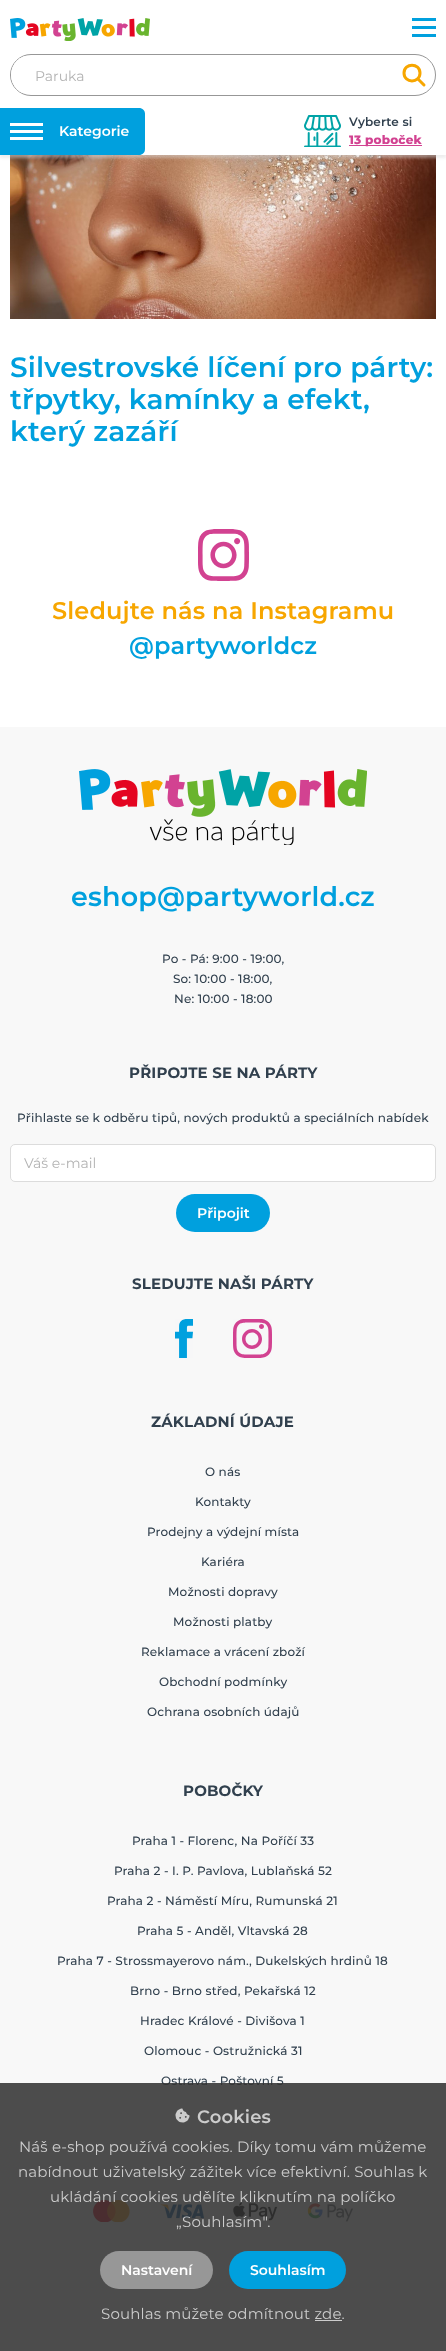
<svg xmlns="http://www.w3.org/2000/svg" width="446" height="2351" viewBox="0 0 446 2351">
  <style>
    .t1 { font: 14px Montserrat; fill: #b3b3b3; }
    .t2 { font: 600 12px Montserrat; letter-spacing: 0.15px; fill: #31404e; }
    .t3 { font: 800 12px Montserrat; letter-spacing: 0.15px; fill: #d24291; }
    .t4 { font: 600 14px Montserrat; fill: #fff; }
    .t5 { font: 600 28px Montserrat; letter-spacing: 0.15px; fill: #00a0de; }
    .t6 { font: 600 24px Montserrat; letter-spacing: 0.15px; fill: #f7a600; }
    .t7 { font: 600 24px Montserrat; letter-spacing: 0.15px; fill: #00a0de; }
    .t8 { font: 600 27px Montserrat; letter-spacing: 0.15px; fill: #00a0de; }
    .t9 { font: 500 12px Montserrat; letter-spacing: 0.15px; fill: #31404e; }
    .t10 { font: bold 15px Montserrat; letter-spacing: 0.15px; fill: #31404e; }
    .t11 { font: 600 18px Montserrat; letter-spacing: 0.15px; fill: #ccc; }
    .t12 { font: 15px Montserrat; letter-spacing: 0.15px; fill: #ccc; }
  </style>
  <defs>
    <clipPath id="clip1"><rect x="11" y="55" width="424" height="40" rx="20"/></clipPath>
    <clipPath id="clip2"><rect x="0" y="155" width="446" height="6"/></clipPath>
  </defs>
  <rect width="100%" height="100%" fill="#fff"/>
  <image x="10" y="18" width="140" height="23" href="images/1.png"/>
  <rect x="10.5" y="54.5" width="425" height="41" rx="20.5" fill="none" stroke="#979797"/>
  <g clip-path="url(#clip1)">
    <rect x="11" y="56" width="382" height="37" rx="5" fill="#fff"/>
  </g>
  <text x="35" y="81" class="t1">Paruka</text>
  <path d="M420 73C420 83.5 404 83.5 404 73C404 62.5 420 62.5 420 73ZM424 85L418 79" fill="none" stroke="#f7a600" stroke-width="3" stroke-linecap="round" stroke-linejoin="round"/>
  <image x="10" y="155" width="426" height="164" href="images/3.png"/>
  <g clip-path="url(#clip2)">
    <rect x="0" y="111" width="446" height="47" fill="#dcdcdc80" filter="blur(1.5px)"/>
  </g>
  <image x="304" y="115" width="37" height="32" href="images/2.png"/>
  <text x="349" y="126" class="t2">Vyberte si</text>
  <rect x="349" y="145" width="73" height="1" fill="#d24291"/>
  <text x="349" y="144" class="t3">13 poboček</text>
  <rect x="412" y="18" width="24" height="3" fill="#00a0de"/>
  <rect x="412" y="26" width="24" height="3" fill="#00a0de"/>
  <rect x="412" y="34" width="24" height="3" fill="#00a0de"/>
  <rect x="0" y="108" width="10" height="47" fill="#00a0de"/>
  <path d="M10 108H139C142.5 108 145 110.5 145 114V149C145 152.5 142.5 155 139 155H10Z" fill="#00a0de"/>
  <rect x="10" y="123" width="33" height="3" fill="#fff"/>
  <rect x="10" y="130" width="33" height="3" fill="#fff"/>
  <rect x="10" y="137" width="33" height="3" fill="#fff"/>
  <text x="59" y="136" class="t4">Kategorie</text>
  <text x="10" y="377" class="t5">Silvestrovské líčení pro párty:</text>
  <text x="10" y="409" class="t5">třpytky, kamínky a efekt,</text>
  <text x="10" y="441" class="t5">který zazáří</text>
  <image x="198" y="529" width="51" height="52" href="images/4.png"/>
  <text x="52" y="619" class="t6">Sledujte nás na Instagramu</text>
  <text x="129" y="654" class="t7">@partyworldcz</text>
  <rect x="0" y="727" width="446" height="1624" fill="#f8f8f8"/>
  <image x="79" y="769" width="288" height="76" href="images/5.png"/>
  <text x="71" y="906" class="t8">eshop@partyworld.cz</text>
  <text x="162" y="963" class="t9">Po - Pá: 9:00 - 19:00,</text>
  <text x="173" y="983" class="t9">So: 10:00 - 18:00,</text>
  <text x="174" y="1003" class="t9">Ne: 10:00 - 18:00</text>
  <text x="129" y="1078" class="t10">PŘIPOJTE SE NA PÁRTY</text>
  <text x="17" y="1122" class="t9">Přihlaste se k odběru tipů, nových produktů a speciálních nabídek</text>
  <rect x="10.5" y="1144.5" width="425" height="37" rx="4.5" fill="#fff" stroke="#dcdcdc"/>
  <text x="24" y="1168" class="t1">Váš e-mail</text>
  <rect x="176" y="1194" width="94" height="38" rx="19" fill="#00a0de"/>
  <text x="197" y="1218" class="t4">Připojit</text>
  <text x="132" y="1289" class="t10">SLEDUJTE NAŠI PÁRTY</text>
  <image x="175" y="1319" width="18" height="39" href="images/6.png"/>
  <image x="233" y="1319" width="39" height="39" href="images/7.png"/>
  <text x="151" y="1427" class="t10">ZÁKLADNÍ ÚDAJE</text>
  <text x="205" y="1476" class="t9">O nás</text>
  <text x="195" y="1506" class="t9">Kontakty</text>
  <text x="147" y="1536" class="t9">Prodejny a výdejní místa</text>
  <text x="201" y="1566" class="t9">Kariéra</text>
  <text x="168" y="1596" class="t9">Možnosti dopravy</text>
  <text x="173" y="1626" class="t9">Možnosti platby</text>
  <text x="141" y="1656" class="t9">Reklamace a vrácení zboží</text>
  <text x="159" y="1686" class="t9">Obchodní podmínky</text>
  <text x="147" y="1716" class="t9">Ochrana osobních údajů</text>
  <text x="183" y="1796" class="t10">POBOČKY</text>
  <text x="132" y="1845" class="t9">Praha 1 - Florenc, Na Poříčí 33</text>
  <text x="114" y="1875" class="t9">Praha 2 - I. P. Pavlova, Lublaňská 52</text>
  <text x="107" y="1905" class="t9">Praha 2 - Náměstí Míru, Rumunská 21</text>
  <text x="137" y="1935" class="t9">Praha 5 - Anděl, Vltavská 28</text>
  <text x="57" y="1965" class="t9">Praha 7 - Strossmayerovo nám., Dukelských hrdinů 18</text>
  <text x="130" y="1995" class="t9">Brno - Brno střed, Pekařská 12</text>
  <text x="140" y="2025" class="t9">Hradec Králové - Divišova 1</text>
  <text x="144" y="2055" class="t9">Olomouc - Ostružnická 31</text>
  <text x="161" y="2085" class="t9">Ostrava - Poštovní 5</text>
  <image x="93" y="2200" width="260" height="22" href="images/8.png"/>
  <rect x="0" y="2083" width="446" height="268" fill="#333333e0"/>
  <image x="175" y="2108" width="15" height="15" href="images/9.png"/>
  <text x="197" y="2123" class="t11">Cookies</text>
  <text x="19" y="2152" class="t12">Náš e-shop používá cookies. Díky tomu vám můžeme</text>
  <text x="18" y="2177" class="t12">nabídnout uživatelský zážitek více efektivní. Souhlas k</text>
  <text x="50" y="2202" class="t12">ukládání cookies udělíte kliknutím na políčko</text>
  <text x="176" y="2227" class="t12">„Souhlasím".</text>
  <rect x="100" y="2251" width="113" height="38" rx="19" fill="#979797"/>
  <text x="121" y="2275" class="t4">Nastavení</text>
  <rect x="229" y="2251" width="117" height="38" rx="19" fill="#00a0de"/>
  <text x="250" y="2275" class="t4">Souhlasím</text>
  <text x="101" y="2319" class="t12">Souhlas můžete odmítnout zde.</text>
  <rect x="315" y="2320" width="27" height="1" fill="#ccc"/>
</svg>
